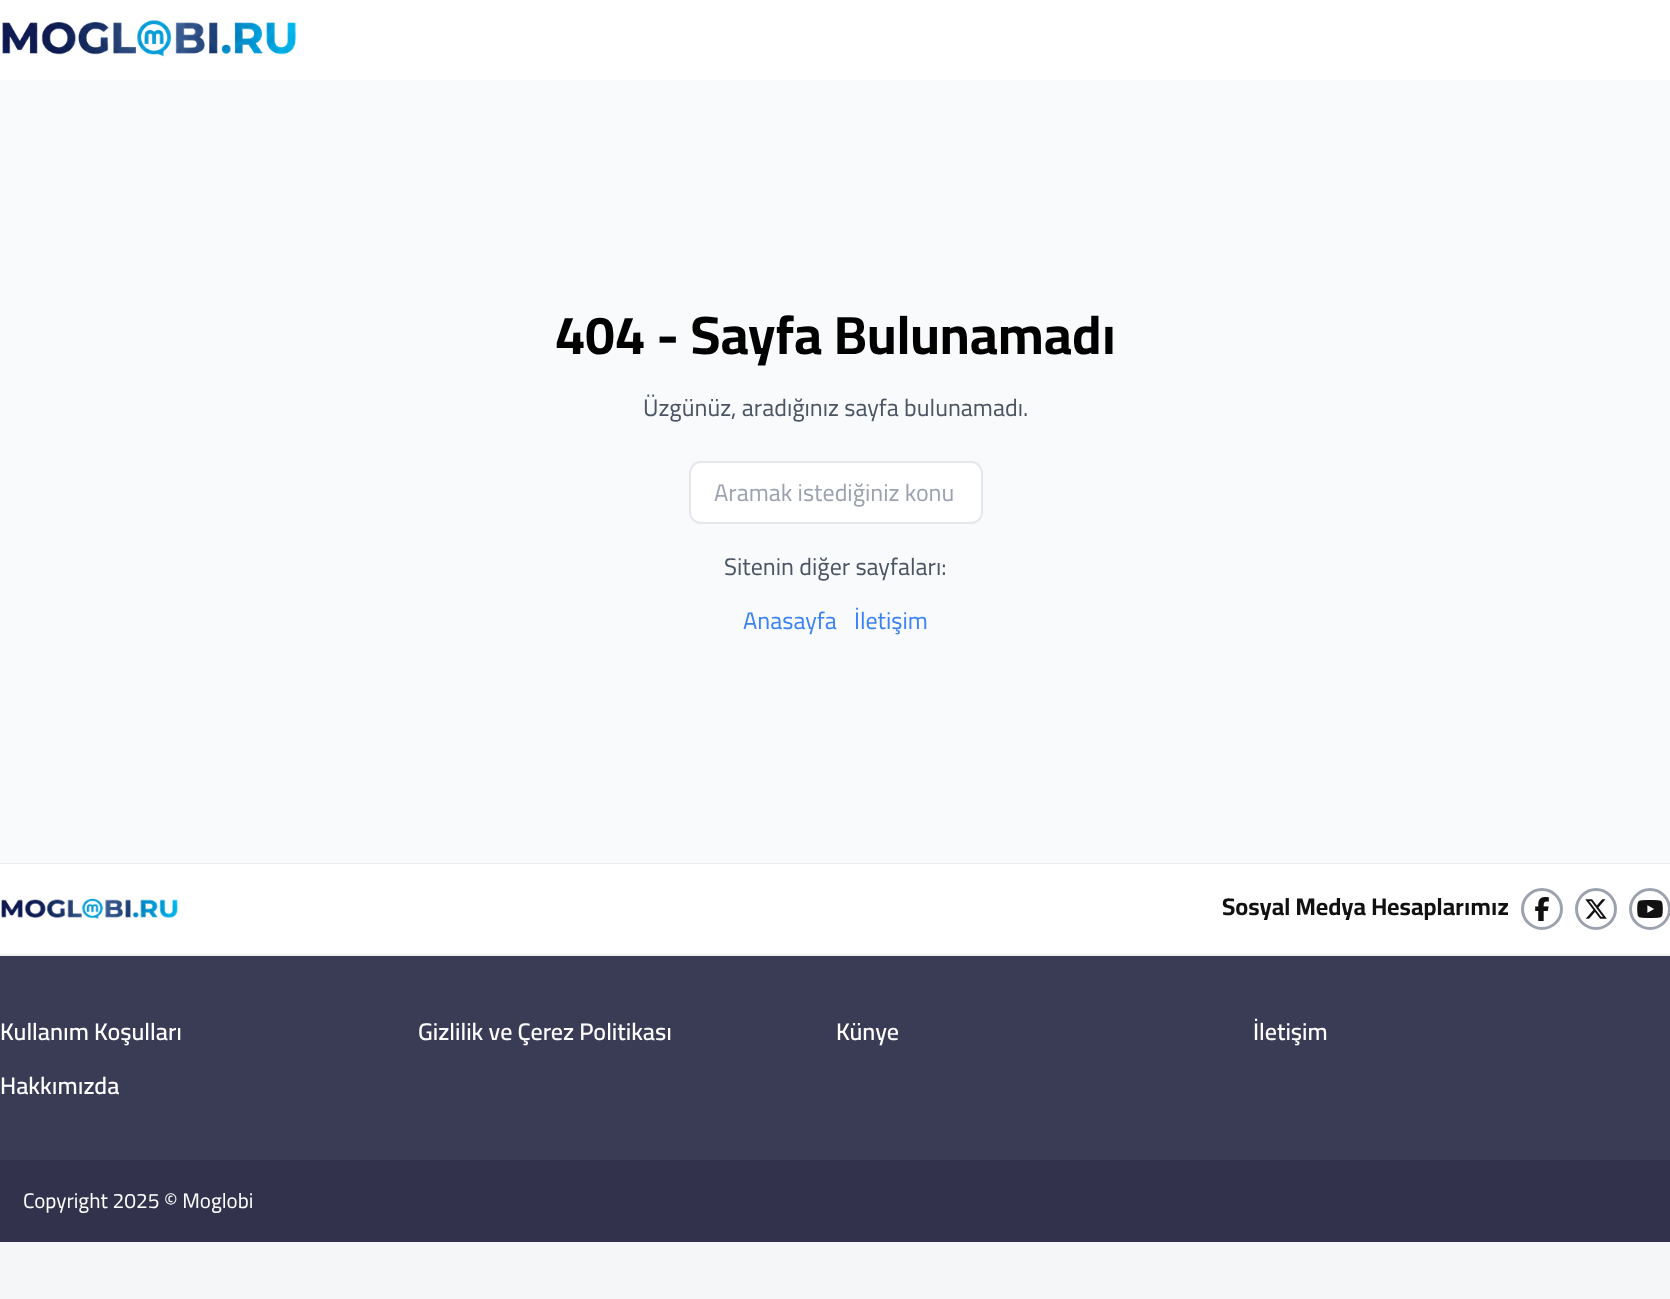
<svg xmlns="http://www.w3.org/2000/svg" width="1670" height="1299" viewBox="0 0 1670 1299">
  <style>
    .t1 { font: bold 54px Cairo; fill: #000; }
    .t2 { font: 24px Cairo; fill: #4b5563; }
    .t3 { font: 24px Cairo; fill: #9ca3af; }
    .t4 { font: 24px Cairo; fill: #3b82f6; }
    .t5 { font: bold 24px Cairo; fill: #111; }
    .t6 { font: 600 24px Cairo; fill: #fff; }
    .t7 { font: 21px Cairo; fill: #fff; }
  </style>
  <rect width="100%" height="100%" fill="#f4f6f7"/>
  <rect x="0" y="0" width="1670" height="80" fill="#fff"/>
  <image x="2" y="20" width="294" height="37" href="images/1.png"/>
  <rect x="0" y="80" width="1670" height="783" fill="#f9fafb"/>
  <text x="555" y="354" class="t1">404 - Sayfa Bulunamadı</text>
  <text x="643" y="416" class="t2">Üzgünüz, aradığınız sayfa bulunamadı.</text>
  <rect x="690" y="462" width="292" height="61" rx="11" fill="#fff" stroke="#e5e7eb" stroke-width="2"/>
  <text x="714" y="501" class="t3">Aramak istediğiniz konu</text>
  <text x="724" y="575" class="t2">Sitenin diğer sayfaları:</text>
  <text x="743" y="629" class="t4">Anasayfa</text>
  <text x="854" y="629" class="t4">İletişim</text>
  <rect x="0" y="863" width="1670" height="1" fill="#ededed"/>
  <rect x="0" y="864" width="1670" height="90" fill="#fff"/>
  <rect x="0" y="954" width="1670" height="2" fill="#f2f2f2"/>
  <image x="1" y="898" width="177" height="21" href="images/2.png"/>
  <text x="1222" y="915" class="t5">Sosyal Medya Hesaplarımız</text>
  <circle cx="1542" cy="909" r="19.5" fill="none" stroke="#9ca3af" stroke-width="3"/>
  <image x="1535" y="897" width="14" height="24" href="images/3.png"/>
  <circle cx="1596" cy="909" r="19.5" fill="none" stroke="#9ca3af" stroke-width="3"/>
  <image x="1585" y="899" width="22" height="20" href="images/4.png"/>
  <circle cx="1650" cy="909" r="19.5" fill="none" stroke="#9ca3af" stroke-width="3"/>
  <image x="1637" y="900" width="26" height="18" href="images/5.png"/>
  <rect x="0" y="956" width="1670" height="204" fill="#3a3b54"/>
  <text x="0" y="1040" class="t6">Kullanım Koşulları</text>
  <text x="418" y="1040" class="t6">Gizlilik ve Çerez Politikası</text>
  <text x="836" y="1040" class="t6">Künye</text>
  <text x="1253" y="1040" class="t6">İletişim</text>
  <text x="0" y="1094" class="t6">Hakkımızda</text>
  <rect x="0" y="1160" width="1670" height="82" fill="#32324c"/>
  <text x="23" y="1208" class="t7">Copyright 2025 © Moglobi</text>
</svg>
